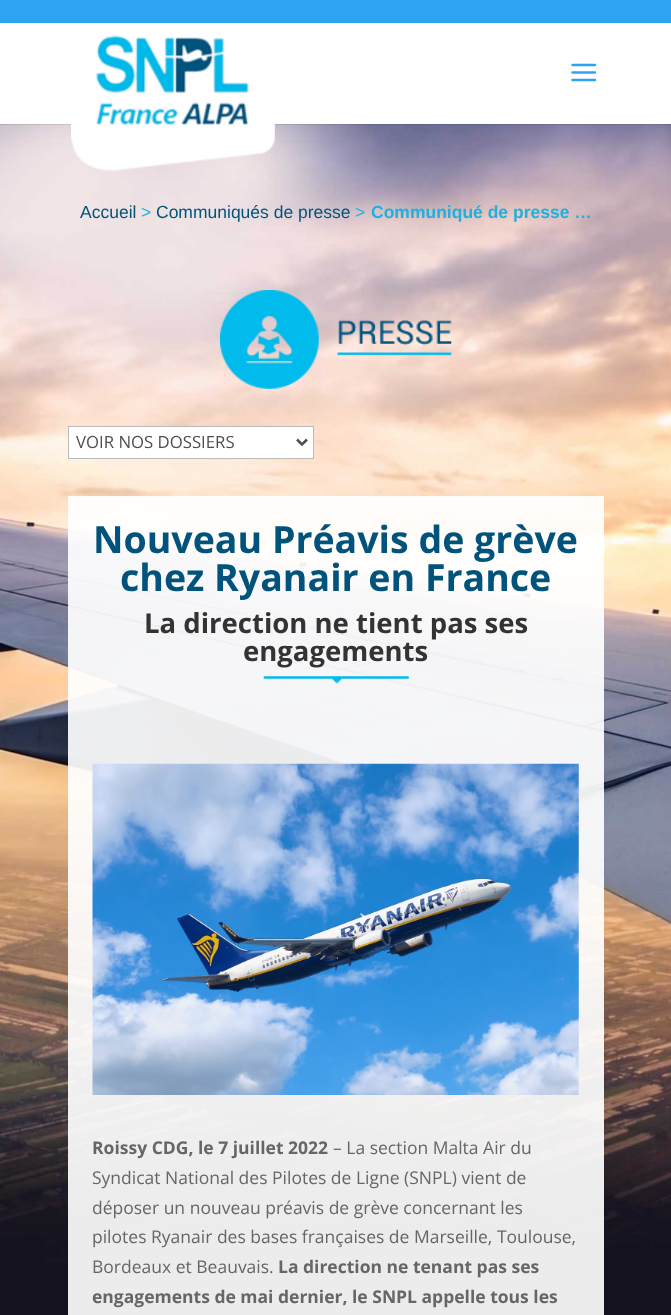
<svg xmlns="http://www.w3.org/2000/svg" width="671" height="1315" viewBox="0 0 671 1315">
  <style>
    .t1 { font: 17.5px Liberation Sans; fill: #01537c; }
    .t2 { font: 17.5px Liberation Sans; fill: #1eb1dd; }
    .t3 { font: bold 17.5px Liberation Sans; fill: #1eb1dd; }
    .t4 { font: 16.75px Open Sans; fill: #4e4e4e; }
    .t5 { font: bold 37.5px Open Sans; fill: #01537c; }
    .t6 { font: bold 27.5px Open Sans; fill: #333; }
    .t7 { font: bold 17.5px Open Sans; fill: #666; }
    .t8 { font: 17.5px Open Sans; fill: #666; }
  </style>
  <rect width="100%" height="100%" fill="#fff"/>
  <rect x="0" y="0" width="671" height="23" fill="#2ea3f2"/>
  <image x="0" y="124" width="671" height="1191" href="images/3.png"/>
  <rect x="0" y="124" width="671" height="1" fill="#0000001a"/>
  <image x="71" y="35" width="204" height="136" href="images/1.png"/>
  <image x="571" y="63" width="26" height="19" href="images/2.png"/>
  <text x="80" y="218" class="t1">Accueil</text>
  <text x="141" y="218" class="t2">&gt;</text>
  <text x="156" y="218" class="t1">Communiqués de presse</text>
  <text x="355" y="218" class="t2">&gt;</text>
  <text x="371" y="218" class="t3">Communiqué de presse …</text>
  <image x="220" y="290" width="232" height="99" href="images/4.png"/>
  <rect x="68.5" y="426.5" width="245" height="32" fill="#fff" stroke="#bbb"/>
  <path d="M297 439.5L302 444.5L307 439.5" fill="none" stroke="#4e4e4e" stroke-width="2.5"/>
  <text x="76" y="448" class="t4">VOIR NOS DOSSIERS</text>
  <rect x="68" y="496" width="536" height="819" fill="#ffffffeb"/>
  <text x="93" y="553" class="t5">Nouveau Préavis de grève</text>
  <text x="120" y="591" class="t5">chez Ryanair en France</text>
  <text x="144" y="633" class="t6">La direction ne tient pas ses</text>
  <text x="243" y="661" class="t6">engagements</text>
  <image x="263" y="676" width="146" height="8" href="images/5.png"/>
  <image x="92" y="763" width="487" height="332" href="images/6.png"/>
  <text x="92" y="1154" class="t7">Roissy CDG, le 7 juillet 2022</text>
  <text x="333" y="1154" class="t8">– La section Malta Air du</text>
  <text x="92" y="1184" class="t8">Syndicat National des Pilotes de Ligne (SNPL) vient de</text>
  <text x="92" y="1214" class="t8">déposer un nouveau préavis de grève concernant les</text>
  <text x="92" y="1243" class="t8">pilotes Ryanair des bases françaises de Marseille, Toulouse,</text>
  <text x="92" y="1273" class="t8">Bordeaux et Beauvais.</text>
  <text x="278" y="1273" class="t7">La direction ne tenant pas ses</text>
  <text x="92" y="1303" class="t7">engagements de mai dernier, le SNPL appelle tous les</text>
</svg>
